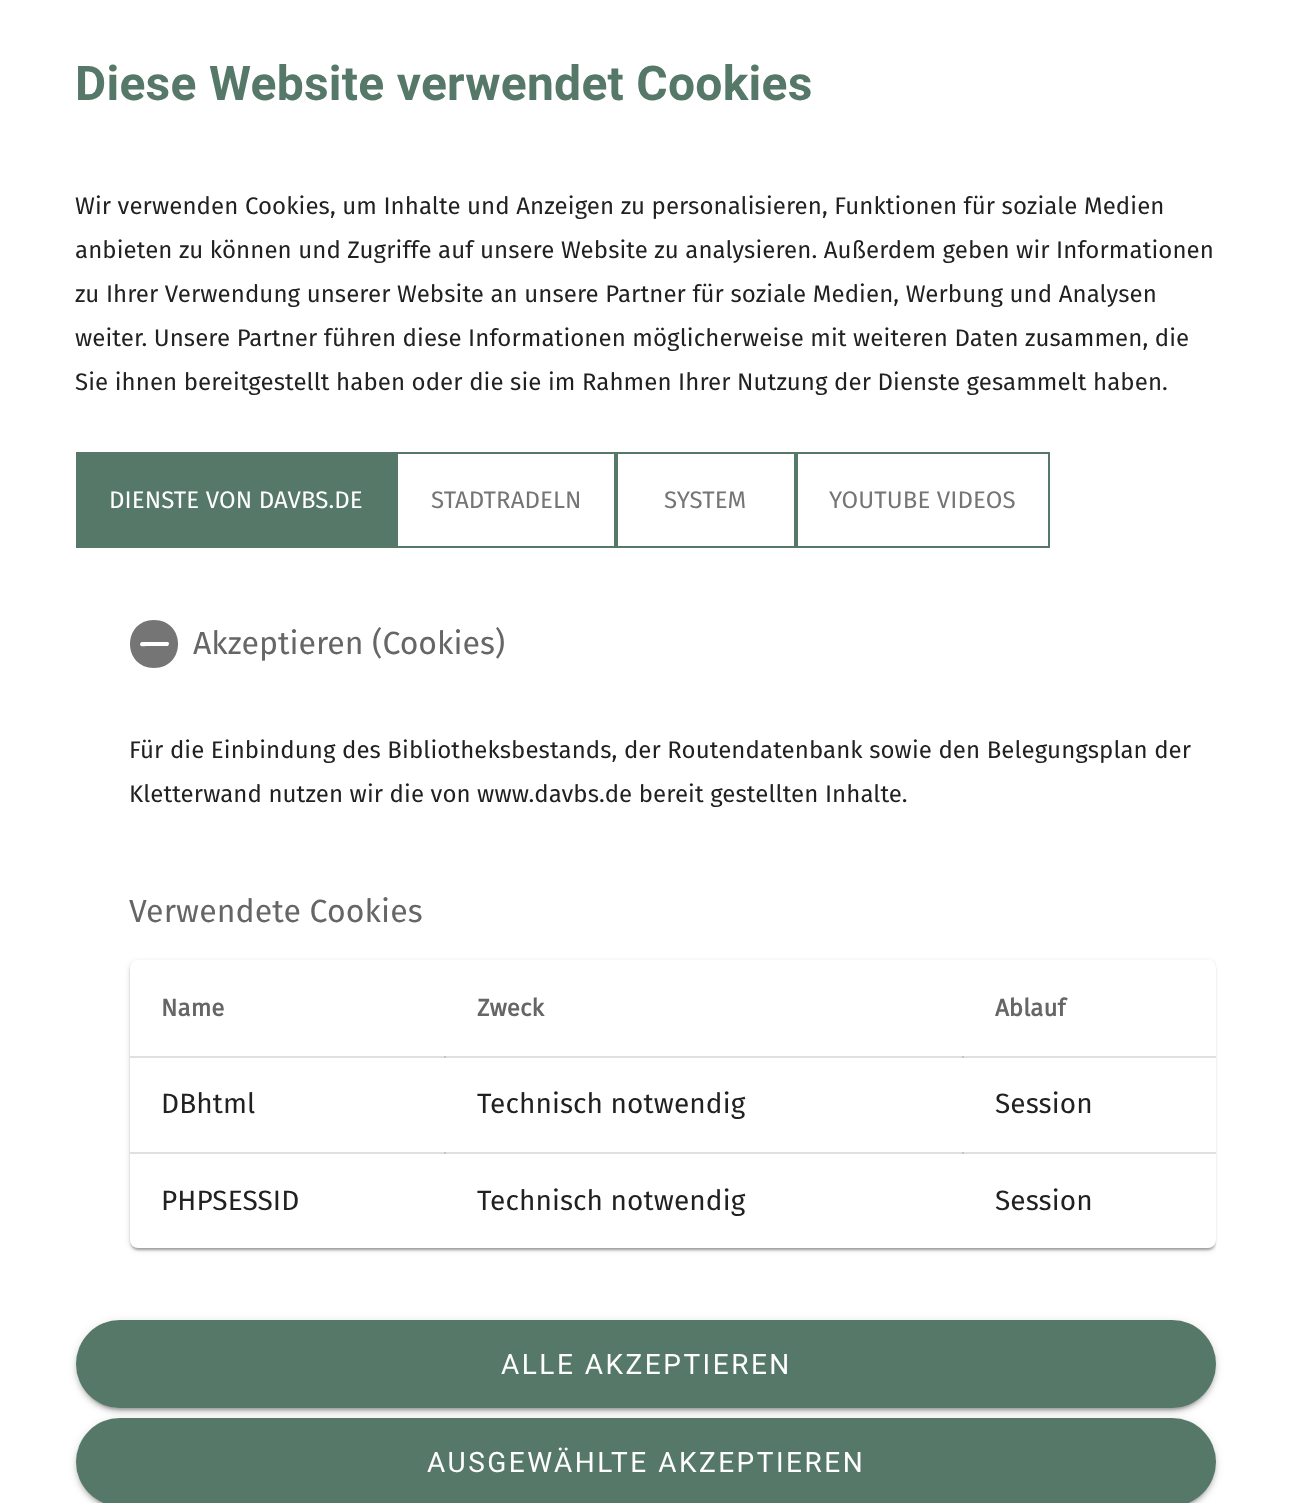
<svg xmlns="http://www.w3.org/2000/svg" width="1289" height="1503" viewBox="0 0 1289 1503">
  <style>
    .t1 { font: bold 48px Roboto; letter-spacing: 0.25px; fill: #567868; }
    .t2 { font: 24px Fira Sans; letter-spacing: 0.1px; fill: #212121; }
    .t3 { font: 24px Fira Sans; letter-spacing: 0.1px; fill: #fff; }
    .t4 { font: 24px Fira Sans; letter-spacing: 0.1px; fill: #757575; }
    .t5 { font: 32px Fira Sans; fill: #666; }
    .t6 { font: 32px Fira Sans; letter-spacing: 0.1px; fill: #666; }
    .t7 { font: bold 24px Fira Sans; letter-spacing: 0.1px; fill: #666; }
    .t8 { font: 28px Fira Sans; letter-spacing: 0.1px; fill: #212121; }
    .t9 { font: 28px Roboto; letter-spacing: 2.5px; fill: #fff; }
  </style>
  <defs>
    <clipPath id="clip1"><rect x="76" y="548" width="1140" height="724"/></clipPath>
  </defs>
  <rect width="100%" height="100%" fill="#fff"/>
  <text x="75" y="100" class="t1">Diese Website verwendet Cookies</text>
  <text x="75" y="214" class="t2">Wir verwenden Cookies, um Inhalte und Anzeigen zu personalisieren, Funktionen für soziale Medien</text>
  <text x="75" y="258" class="t2">anbieten zu können und Zugriffe auf unsere Website zu analysieren. Außerdem geben wir Informationen</text>
  <text x="75" y="302" class="t2">zu Ihrer Verwendung unserer Website an unsere Partner für soziale Medien, Werbung und Analysen</text>
  <text x="75" y="346" class="t2">weiter. Unsere Partner führen diese Informationen möglicherweise mit weiteren Daten zusammen, die</text>
  <text x="75" y="390" class="t2">Sie ihnen bereitgestellt haben oder die sie im Rahmen Ihrer Nutzung der Dienste gesammelt haben.</text>
  <rect x="76" y="452" width="320" height="96" fill="#567868"/>
  <text x="109" y="508" class="t3">DIENSTE VON DAVBS.DE</text>
  <rect x="397" y="453" width="218" height="94" fill="none" stroke="#567868" stroke-width="2"/>
  <text x="431" y="508" class="t4">STADTRADELN</text>
  <rect x="617" y="453" width="178" height="94" fill="none" stroke="#567868" stroke-width="2"/>
  <text x="664" y="508" class="t4">SYSTEM</text>
  <rect x="797" y="453" width="252" height="94" fill="none" stroke="#567868" stroke-width="2"/>
  <text x="829" y="508" class="t4">YOUTUBE VIDEOS</text>
  <path d="M154 620C186 620 186 668 154 668C122 668 122 620 154 620ZM168 642H146C143 642 140 641 140 645C141 647 144 646 146 646H163C167 646 169 647 169 643Z" fill="#757575"/>
  <text x="193" y="654" class="t5">Akzeptieren (Cookies)</text>
  <text x="129" y="758" class="t2">Für die Einbindung des Bibliotheksbestands, der Routendatenbank sowie den Belegungsplan der</text>
  <text x="129" y="802" class="t2">Kletterwand nutzen wir die von www.davbs.de bereit gestellten Inhalte.</text>
  <text x="129" y="922" class="t6">Verwendete Cookies</text>
  <g clip-path="url(#clip1)">
    <rect x="130" y="962" width="1086" height="288" rx="8" fill="#0000001f" filter="blur(3px)"/>
  </g>
  <rect x="130" y="962" width="1086" height="288" rx="8" fill="#00000024" filter="blur(1px)"/>
  <rect x="132" y="966" width="1082" height="284" rx="6" fill="#00000033" filter="blur(1px)"/>
  <rect x="130" y="960" width="1086" height="288" rx="8" fill="#fff"/>
  <rect x="962" y="1056" width="254" height="2" fill="#e0e0e0"/>
  <rect x="444" y="1056" width="520" height="2" fill="#0000001f"/>
  <rect x="130" y="1056" width="316" height="2" fill="#0000001f"/>
  <text x="161" y="1016" class="t7">Name</text>
  <text x="477" y="1016" class="t7">Zweck</text>
  <text x="995" y="1016" class="t7">Ablauf</text>
  <rect x="962" y="1152" width="254" height="2" fill="#e0e0e0"/>
  <rect x="444" y="1152" width="520" height="2" fill="#0000001f"/>
  <rect x="130" y="1152" width="316" height="2" fill="#0000001f"/>
  <text x="161" y="1113" class="t8">DBhtml</text>
  <text x="477" y="1113" class="t8">Technisch notwendig</text>
  <text x="995" y="1113" class="t8">Session</text>
  <text x="161" y="1210" class="t8">PHPSESSID</text>
  <text x="477" y="1210" class="t8">Technisch notwendig</text>
  <text x="995" y="1210" class="t8">Session</text>
  <rect x="76" y="1322" width="1140" height="88" rx="44" fill="#0000001f" filter="blur(5px)"/>
  <rect x="76" y="1324" width="1140" height="88" rx="44" fill="#00000024" filter="blur(2px)"/>
  <rect x="80" y="1330" width="1132" height="80" rx="40" fill="#00000033" filter="blur(1px)"/>
  <rect x="76" y="1320" width="1140" height="88" rx="44" fill="#567868"/>
  <text x="501" y="1374" class="t9">ALLE AKZEPTIEREN</text>
  <rect x="76" y="1420" width="1140" height="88" rx="44" fill="#0000001f" filter="blur(5px)"/>
  <rect x="76" y="1422" width="1140" height="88" rx="44" fill="#00000024" filter="blur(2px)"/>
  <rect x="80" y="1428" width="1132" height="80" rx="40" fill="#00000033" filter="blur(1px)"/>
  <rect x="76" y="1418" width="1140" height="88" rx="44" fill="#567868"/>
  <text x="427" y="1472" class="t9">AUSGEWÄHLTE AKZEPTIEREN</text>
</svg>
